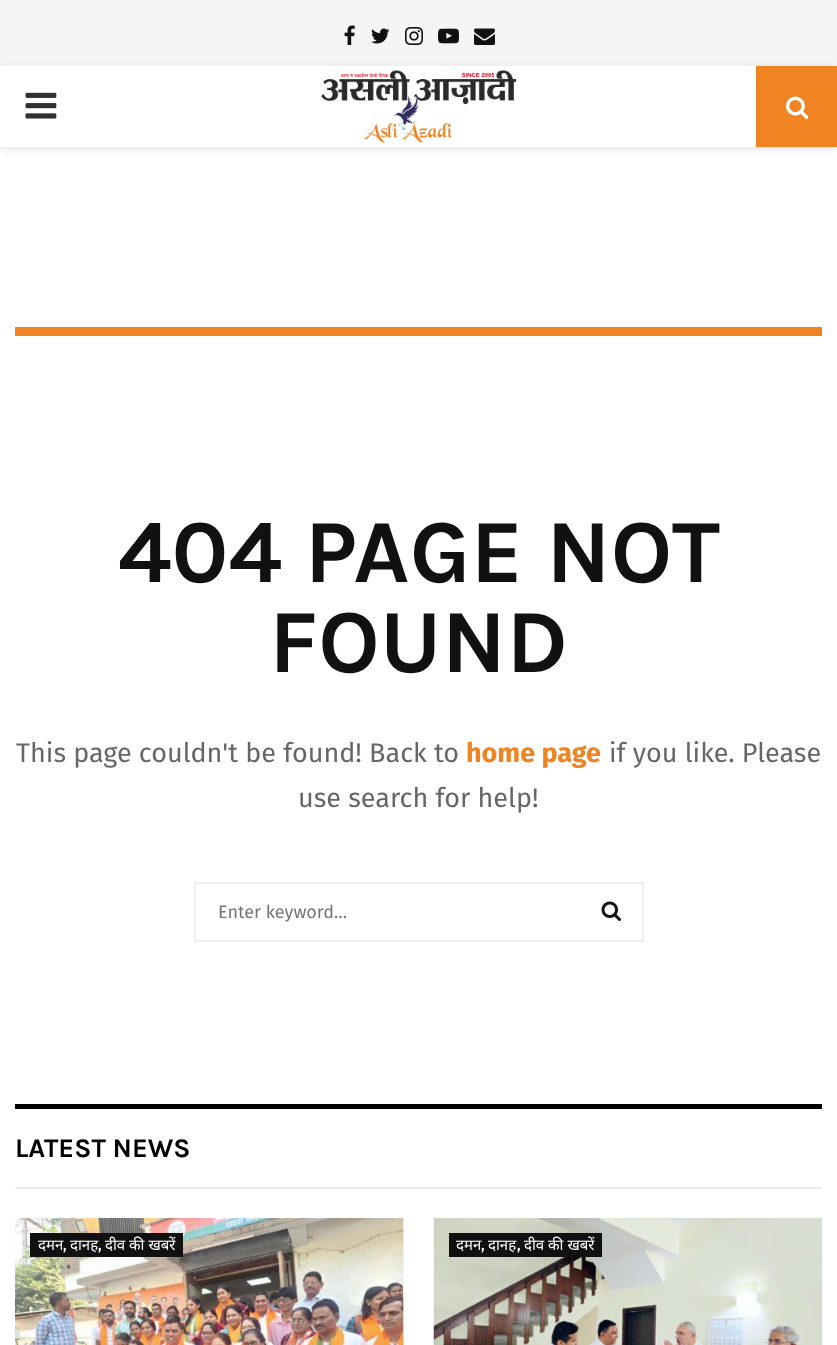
<svg xmlns="http://www.w3.org/2000/svg" width="837" height="1345" viewBox="0 0 837 1345">
  <style>
    .t1 { font: bold 90px Karla; fill: #111; }
    .t2 { font: 27px Fira Sans; fill: #666; }
    .t3 { font: bold 27px Fira Sans; fill: #f08423; }
    .t4 { font: 18px Fira Sans; fill: #757575; }
    .t5 { font: bold 27px Karla; fill: #000; }
    .t6 { font: 15px Noto Sans; fill: #fff; }
    .t7 { font: 500 15px Fira Sans; fill: #fff; }
  </style>
  <defs>
    <clipPath id="clip1"><path d="M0 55H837V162H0ZM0 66H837V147H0Z" clip-rule="evenodd"/></clipPath>
  </defs>
  <rect width="100%" height="100%" fill="#fff"/>
  <rect x="0" y="0" width="837" height="66" fill="#f5f5f5"/>
  <image x="344" y="25" width="11" height="20" href="images/1.png"/>
  <image x="371" y="28" width="19" height="16" href="images/2.png"/>
  <image x="405" y="27" width="18" height="18" href="images/3.png"/>
  <image x="438" y="28" width="21" height="16" href="images/4.png"/>
  <image x="474" y="28" width="21" height="17" href="images/5.png"/>
  <g clip-path="url(#clip1)">
    <rect x="0" y="68" width="837" height="81" fill="#bebebe75" filter="blur(4px)"/>
  </g>
  <image x="25" y="92" width="32" height="27" href="images/6.png"/>
  <image x="321" y="70" width="196" height="73" href="images/7.png"/>
  <rect x="756" y="66" width="81" height="81" fill="#f08423"/>
  <image x="786" y="96" width="23" height="23" href="images/8.png"/>
  <rect x="15" y="327" width="807" height="9" fill="#f08423"/>
  <text x="118" y="582" class="t1">404 PAGE NOT</text>
  <text x="269" y="672" class="t1">FOUND</text>
  <text x="16" y="762" class="t2">This page couldn't be found! Back to</text>
  <text x="466" y="762" class="t3">home page</text>
  <text x="609" y="762" class="t2">if you like. Please</text>
  <text x="298" y="807" class="t2">use search for help!</text>
  <rect x="195" y="883" width="448" height="58" fill="none" stroke="#eee" stroke-width="2"/>
  <text x="218" y="918" class="t4">Enter keyword...</text>
  <image x="601" y="901" width="20" height="20" href="images/9.png"/>
  <rect x="15" y="1187" width="807" height="2" fill="#ececec"/>
  <rect x="15" y="1104" width="807" height="5" fill="#000"/>
  <text x="15" y="1157" class="t5">LATEST NEWS</text>
  <rect x="403" y="1218" width="1" height="127" fill="#f5f5f5"/>
  <image x="15" y="1218" width="389" height="127" href="images/10.png"/>
  <rect x="30" y="1233" width="153" height="24" fill="#111"/>
  <text x="38" y="1250" class="t6">दमन</text>
  <text x="63" y="1250" class="t7">,</text>
  <text x="70" y="1250" class="t6">दानह</text>
  <text x="98" y="1250" class="t7">,</text>
  <text x="105" y="1250" class="t6">दीव की खबरें</text>
  <image x="433" y="1218" width="389" height="127" href="images/11.png"/>
  <rect x="449" y="1233" width="153" height="24" fill="#111"/>
  <text x="456" y="1250" class="t6">दमन</text>
  <text x="481" y="1250" class="t7">,</text>
  <text x="488" y="1250" class="t6">दानह</text>
  <text x="517" y="1250" class="t7">,</text>
  <text x="524" y="1250" class="t6">दीव की खबरें</text>
</svg>
